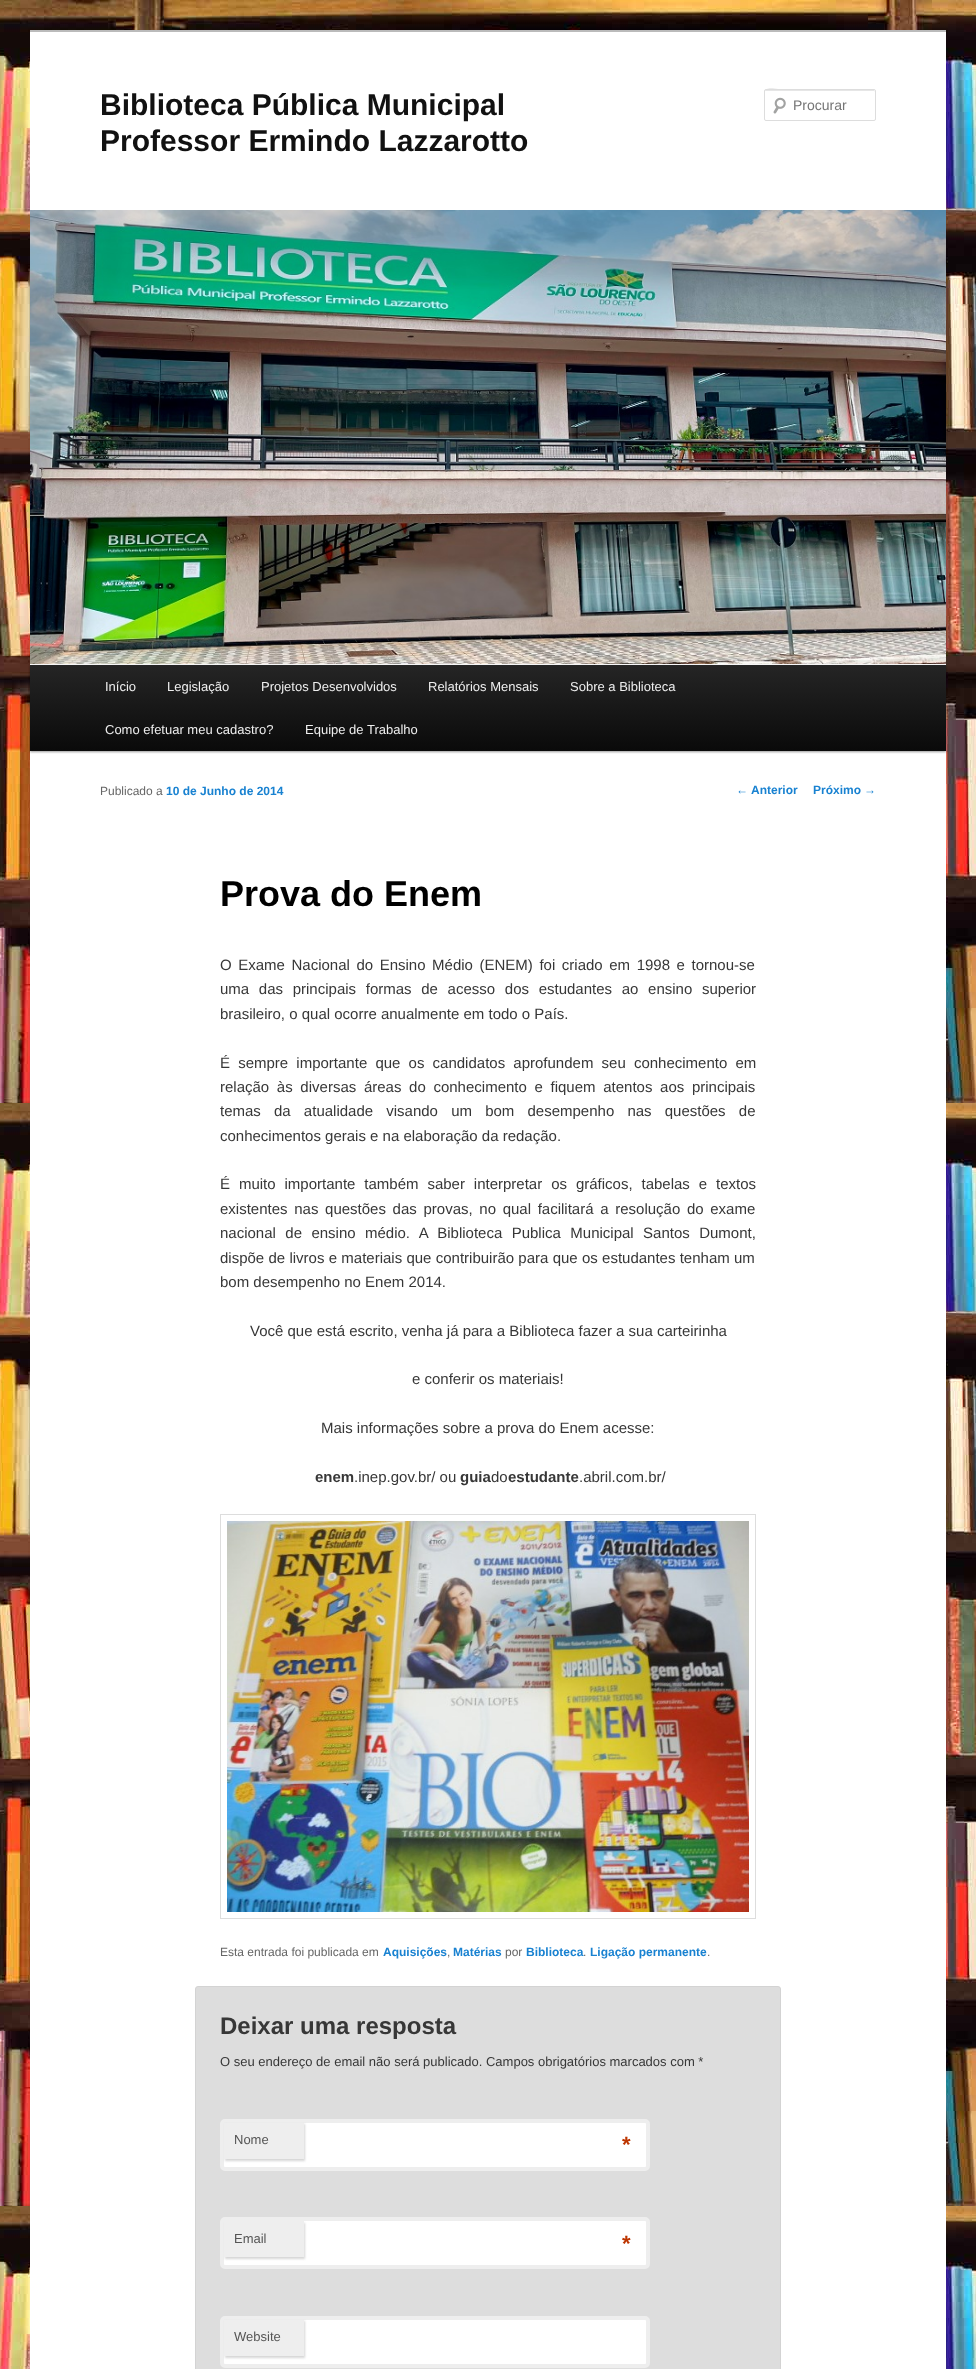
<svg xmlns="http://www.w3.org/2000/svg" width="976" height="2369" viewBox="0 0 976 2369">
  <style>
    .t1 { font: bold 30px Liberation Sans; fill: #111; }
    .t2 { font: 14px Liberation Sans; fill: #757575; }
    .t3 { font: 13px Liberation Sans; fill: #eee; }
    .t4 { font: 12px Liberation Sans; fill: #666; }
    .t5 { font: bold 12px Liberation Sans; fill: #1982d1; }
    .t6 { font: bold 36px Liberation Sans; fill: #000; }
    .t7 { font: 15px Liberation Sans; fill: #373737; }
    .t8 { font: bold 15px Liberation Sans; fill: #373737; }
    .t9 { font: 12px Liberation Sans; fill: #1982d1; }
    .t10 { font: bold 24px Liberation Sans; fill: #373737; }
    .t11 { font: 13px Liberation Sans; fill: #373737; }
    .t12 { font: 13px Liberation Sans; fill: #555; }
    .t13 { font: bold 22px Liberation Sans; fill: #bd3500; }
  </style>
  <defs>
    <linearGradient id="g1" gradientUnits="userSpaceOnUse" x1="488" y1="665" x2="488" y2="751"><stop offset="0" stop-color="#252525"/><stop offset="1" stop-color="#0a0a0a"/></linearGradient>
  </defs>
  <rect width="100%" height="100%" fill="#fff"/>
  <image x="0" y="0" width="976" height="2369" href="images/1.png"/>
  <rect x="30" y="32" width="916" height="2337" fill="#fff"/>
  <rect x="30" y="30" width="916" height="2" fill="#bbb"/>
  <text x="100" y="115" class="t1">Biblioteca Pública Municipal</text>
  <text x="100" y="151" class="t1">Professor Ermindo Lazzarotto</text>
  <image x="773" y="97" width="13" height="17" href="images/2.png"/>
  <path d="M766 91H875V92L874 90H784C780 90 765 85 765 92C765 91 765 91 766 91Z" fill="#e6e6e6"/>
  <rect x="764.5" y="89.5" width="111" height="31" rx="1.5" fill="none" stroke="#ddd"/>
  <text x="793" y="110" class="t2">Procurar</text>
  <rect x="30" y="666" width="916" height="86" fill="#00000066" filter="blur(1px)"/>
  <image x="30" y="210" width="916" height="454" href="images/3.png"/>
  <rect x="30" y="665" width="916" height="86" fill="url(#g1)"/>
  <text x="105" y="691" class="t3">Início</text>
  <text x="167" y="691" class="t3">Legislação</text>
  <text x="261" y="691" class="t3">Projetos Desenvolvidos</text>
  <text x="428" y="691" class="t3">Relatórios Mensais</text>
  <text x="570" y="691" class="t3">Sobre a Biblioteca</text>
  <text x="105" y="734" class="t3">Como efetuar meu cadastro?</text>
  <text x="305" y="734" class="t3">Equipe de Trabalho</text>
  <text x="100" y="795" class="t4">Publicado a</text>
  <text x="166" y="795" class="t5">10 de Junho de 2014</text>
  <text x="220" y="906" class="t6">Prova do Enem</text>
  <text x="220" y="970" word-spacing="2.4" class="t7">O Exame Nacional do Ensino Médio (ENEM) foi criado em 1998 e tornou-se</text>
  <text x="220" y="994" word-spacing="5.5" class="t7">uma das principais formas de acesso dos estudantes ao ensino superior</text>
  <text x="220" y="1019" class="t7">brasileiro, o qual ocorre anualmente em todo o País.</text>
  <text x="220" y="1068" word-spacing="4" class="t7">É sempre importante que os candidatos aprofundem seu conhecimento em</text>
  <text x="220" y="1092" word-spacing="3.5" class="t7">relação às diversas áreas do conhecimento e fiquem atentos aos principais</text>
  <text x="220" y="1116" word-spacing="9" class="t7">temas da atualidade visando um bom desempenho nas questões de</text>
  <text x="220" y="1141" class="t7">conhecimentos gerais e na elaboração da redação.</text>
  <text x="220" y="1189" word-spacing="4.75" class="t7">É muito importante também saber interpretar os gráficos, tabelas e textos</text>
  <text x="220" y="1214" word-spacing="2.5" class="t7">existentes nas questões das provas, no qual facilitará a resolução do exame</text>
  <text x="220" y="1238" word-spacing="5.25" class="t7">nacional de ensino médio. A Biblioteca Publica Municipal Santos Dumont,</text>
  <text x="220" y="1263" word-spacing="0.1" class="t7">dispõe de livros e materiais que contribuirão para que os estudantes tenham um</text>
  <text x="220" y="1287" class="t7">bom desempenho no Enem 2014.</text>
  <text x="250" y="1336" class="t7">Você que está escrito, venha já para a Biblioteca fazer a sua carteirinha</text>
  <text x="412" y="1384" class="t7">e conferir os materiais!</text>
  <text x="321" y="1433" class="t7">Mais informações sobre a prova do Enem acesse:</text>
  <text x="315" y="1482" class="t8">enem</text>
  <text x="354" y="1482" class="t7">.inep.gov.br/ ou</text>
  <text x="460" y="1482" class="t8">guia</text>
  <text x="491" y="1482" class="t7">do</text>
  <text x="508" y="1482" class="t8">estudante</text>
  <text x="579" y="1482" class="t7">.abril.com.br/</text>
  <rect x="220.5" y="1514.5" width="535" height="404" fill="none" stroke="#ddd"/>
  <image x="227" y="1521" width="522" height="391" href="images/4.png"/>
  <text x="220" y="1956" class="t4">Esta entrada foi publicada em</text>
  <text x="383" y="1956" class="t5">Aquisições</text>
  <text x="447" y="1956" class="t4">,</text>
  <text x="453" y="1956" class="t5">Matérias</text>
  <text x="505" y="1956" class="t4">por</text>
  <text x="526" y="1956" class="t5">Biblioteca</text>
  <text x="583" y="1956" class="t4">.</text>
  <text x="590" y="1956" class="t5">Ligação permanente</text>
  <text x="707" y="1956" class="t4">.</text>
  <text x="736" y="794" class="t9">←</text>
  <text x="751" y="794" class="t5">Anterior</text>
  <text x="813" y="794" class="t5">Próximo</text>
  <text x="864" y="794" class="t9">→</text>
  <rect x="195.5" y="1986.5" width="585" height="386" rx="2.5" fill="#ddd" stroke="#d3d3d3"/>
  <text x="220" y="2034" class="t10">Deixar uma resposta</text>
  <text x="220" y="2066" class="t11">O seu endereço de email não será publicado. Campos obrigatórios marcados com *</text>
  <rect x="222" y="2121" width="426" height="48" rx="3" fill="#fff" stroke="#eee" stroke-width="4"/>
  <rect x="225" y="2124" width="80" height="37" fill="#cccccccc" filter="blur(1px)"/>
  <rect x="224" y="2123" width="80" height="36" fill="#eee"/>
  <text x="234" y="2144" class="t12">Nome</text>
  <text x="622" y="2152" class="t13">*</text>
  <rect x="222" y="2219" width="426" height="48" rx="3" fill="#fff" stroke="#eee" stroke-width="4"/>
  <rect x="225" y="2223" width="80" height="36" fill="#cccccccc" filter="blur(1px)"/>
  <rect x="224" y="2221" width="80" height="36" fill="#eee"/>
  <text x="234" y="2243" class="t12">Email</text>
  <text x="622" y="2251" class="t13">*</text>
  <rect x="222" y="2318" width="426" height="48" rx="3" fill="#fff" stroke="#eee" stroke-width="4"/>
  <rect x="225" y="2321" width="80" height="37" fill="#cccccccc" filter="blur(1px)"/>
  <rect x="224" y="2320" width="80" height="36" fill="#eee"/>
  <text x="234" y="2341" class="t12">Website</text>
</svg>
